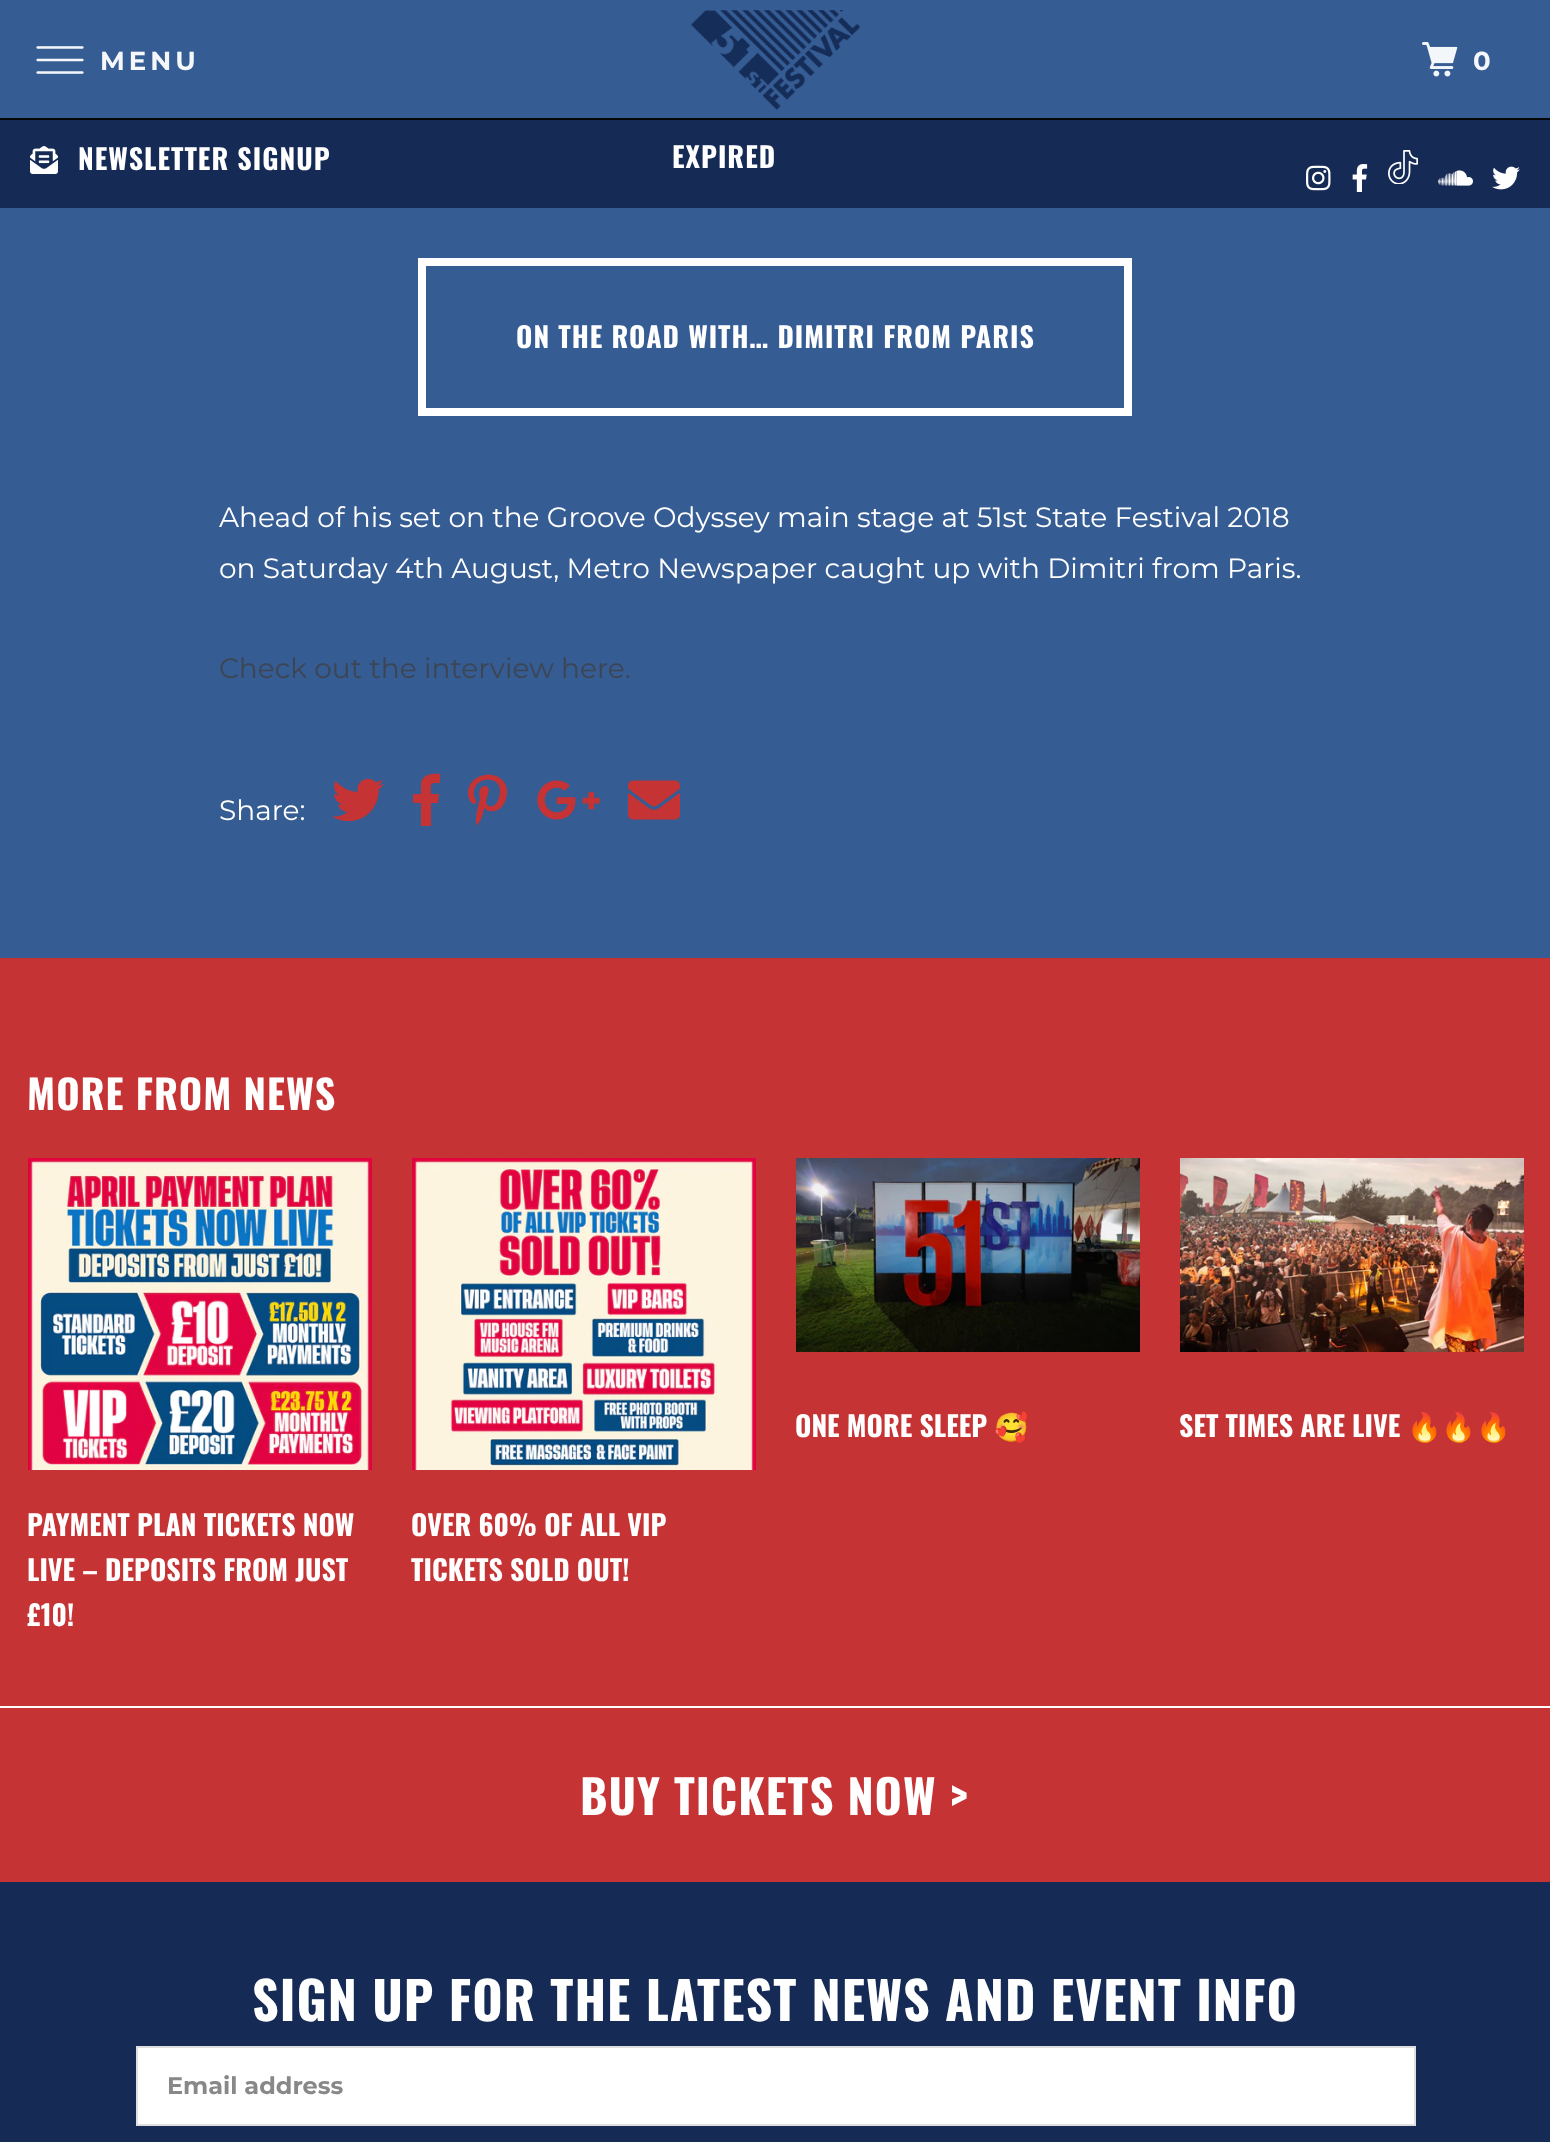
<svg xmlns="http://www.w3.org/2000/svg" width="1550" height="2142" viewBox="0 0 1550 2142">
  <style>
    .t1 { font: bold 26px Montserrat; letter-spacing: 4px; fill: #f5f7fa; }
    .t2 { font: bold 28px Oswald; letter-spacing: 1px; fill: #fff; }
    .t3 { font: 28px Montserrat; fill: #fff; }
    .t4 { font: 28px Montserrat; fill: #3e4552; }
    .t5 { font: bold 40px Oswald; letter-spacing: 1px; fill: #fff; }
    .t6 { font: bold 28px Oswald; fill: #fff; }
    .t7 { font: bold 28px Noto Color Emoji; fill: #fff; }
    .t8 { font: bold 46.75px Oswald; letter-spacing: 1px; fill: #fff; }
    .t9 { font: bold 52px Oswald; letter-spacing: 1px; fill: #fff; }
    .t10 { font: bold 24px Montserrat; fill: #888; }
  </style>
  <rect width="100%" height="100%" fill="#355c93"/>
  <rect x="0" y="118" width="1550" height="2" fill="#030507"/>
  <image x="36" y="46" width="48" height="28" href="images/1.png"/>
  <text x="100" y="70" class="t1">MENU</text>
  <image x="691" y="10" width="169" height="100" href="images/2.png"/>
  <image x="1422" y="42" width="36" height="35" href="images/3.png"/>
  <text x="1473" y="70" class="t1">0</text>
  <rect x="0" y="120" width="1550" height="88" fill="#152b56"/>
  <image x="30" y="146" width="28" height="28" href="images/4.png"/>
  <text x="78" y="170" class="t2">NEWSLETTER SIGNUP</text>
  <text x="672" y="168" class="t2">EXPIRED</text>
  <image x="1306" y="165" width="25" height="26" href="images/5.png"/>
  <image x="1352" y="164" width="16" height="28" href="images/6.png"/>
  <image x="1388" y="150" width="30" height="34" href="images/7.png"/>
  <image x="1438" y="170" width="35" height="16" href="images/8.png"/>
  <image x="1492" y="166" width="28" height="24" href="images/9.png"/>
  <rect x="422" y="262" width="706" height="150" fill="none" stroke="#fff" stroke-width="8"/>
  <text x="516" y="348" class="t2">ON THE ROAD WITH… DIMITRI FROM PARIS</text>
  <text x="219" y="527" class="t3">Ahead of his set on the Groove Odyssey main stage at 51st State Festival 2018</text>
  <text x="219" y="578" class="t3">on Saturday 4th August, Metro Newspaper caught up with Dimitri from Paris.</text>
  <text x="219" y="678" class="t4">Check out the interview here.</text>
  <text x="219" y="820" class="t3">Share:</text>
  <image x="332" y="778" width="52" height="44" href="images/10.png"/>
  <path d="M421 826V803H413V794H421V783C423 774 432 773 440 774V783C429 783 431 783 431 794H439L438 803H431V826" fill="#c53334"/>
  <image x="468" y="774" width="39" height="52" href="images/11.png"/>
  <image x="537" y="780" width="63" height="40" href="images/12.png"/>
  <image x="628" y="780" width="52" height="40" href="images/13.png"/>
  <rect x="0" y="958" width="1550" height="748" fill="#c53334"/>
  <text x="27" y="1110" class="t5">MORE FROM NEWS</text>
  <image x="796" y="1158" width="344" height="194" href="images/14.png"/>
  <text x="795" y="1437" class="t6">ONE MORE SLEEP</text>
  <text x="994" y="1437" class="t7">🥰</text>
  <image x="1180" y="1158" width="344" height="194" href="images/15.png"/>
  <text x="1179" y="1437" class="t6">SET TIMES ARE LIVE</text>
  <text x="1407" y="1437" class="t7">🔥🔥🔥</text>
  <image x="28" y="1158" width="344" height="312" href="images/16.png"/>
  <text x="27" y="1536" class="t6">PAYMENT PLAN TICKETS NOW</text>
  <text x="27" y="1581" class="t6">LIVE – DEPOSITS FROM JUST</text>
  <text x="27" y="1626" class="t6">£10!</text>
  <image x="412" y="1158" width="344" height="312" href="images/17.png"/>
  <text x="411" y="1536" class="t6">OVER 60% OF ALL VIP</text>
  <text x="411" y="1581" class="t6">TICKETS SOLD OUT!</text>
  <rect x="0" y="1706" width="1550" height="2" fill="#fff"/>
  <rect x="0" y="1708" width="1550" height="174" fill="#c53334"/>
  <text x="580" y="1815" class="t8">BUY TICKETS NOW &gt;</text>
  <rect x="0" y="1882" width="1550" height="260" fill="#152b56"/>
  <text x="252" y="2021" class="t9">SIGN UP FOR THE LATEST NEWS AND EVENT INFO</text>
  <rect x="137" y="2047" width="1278" height="78" fill="#fff" stroke="#dfdfdf" stroke-width="2"/>
  <text x="167" y="2094" class="t10">Email address</text>
</svg>
